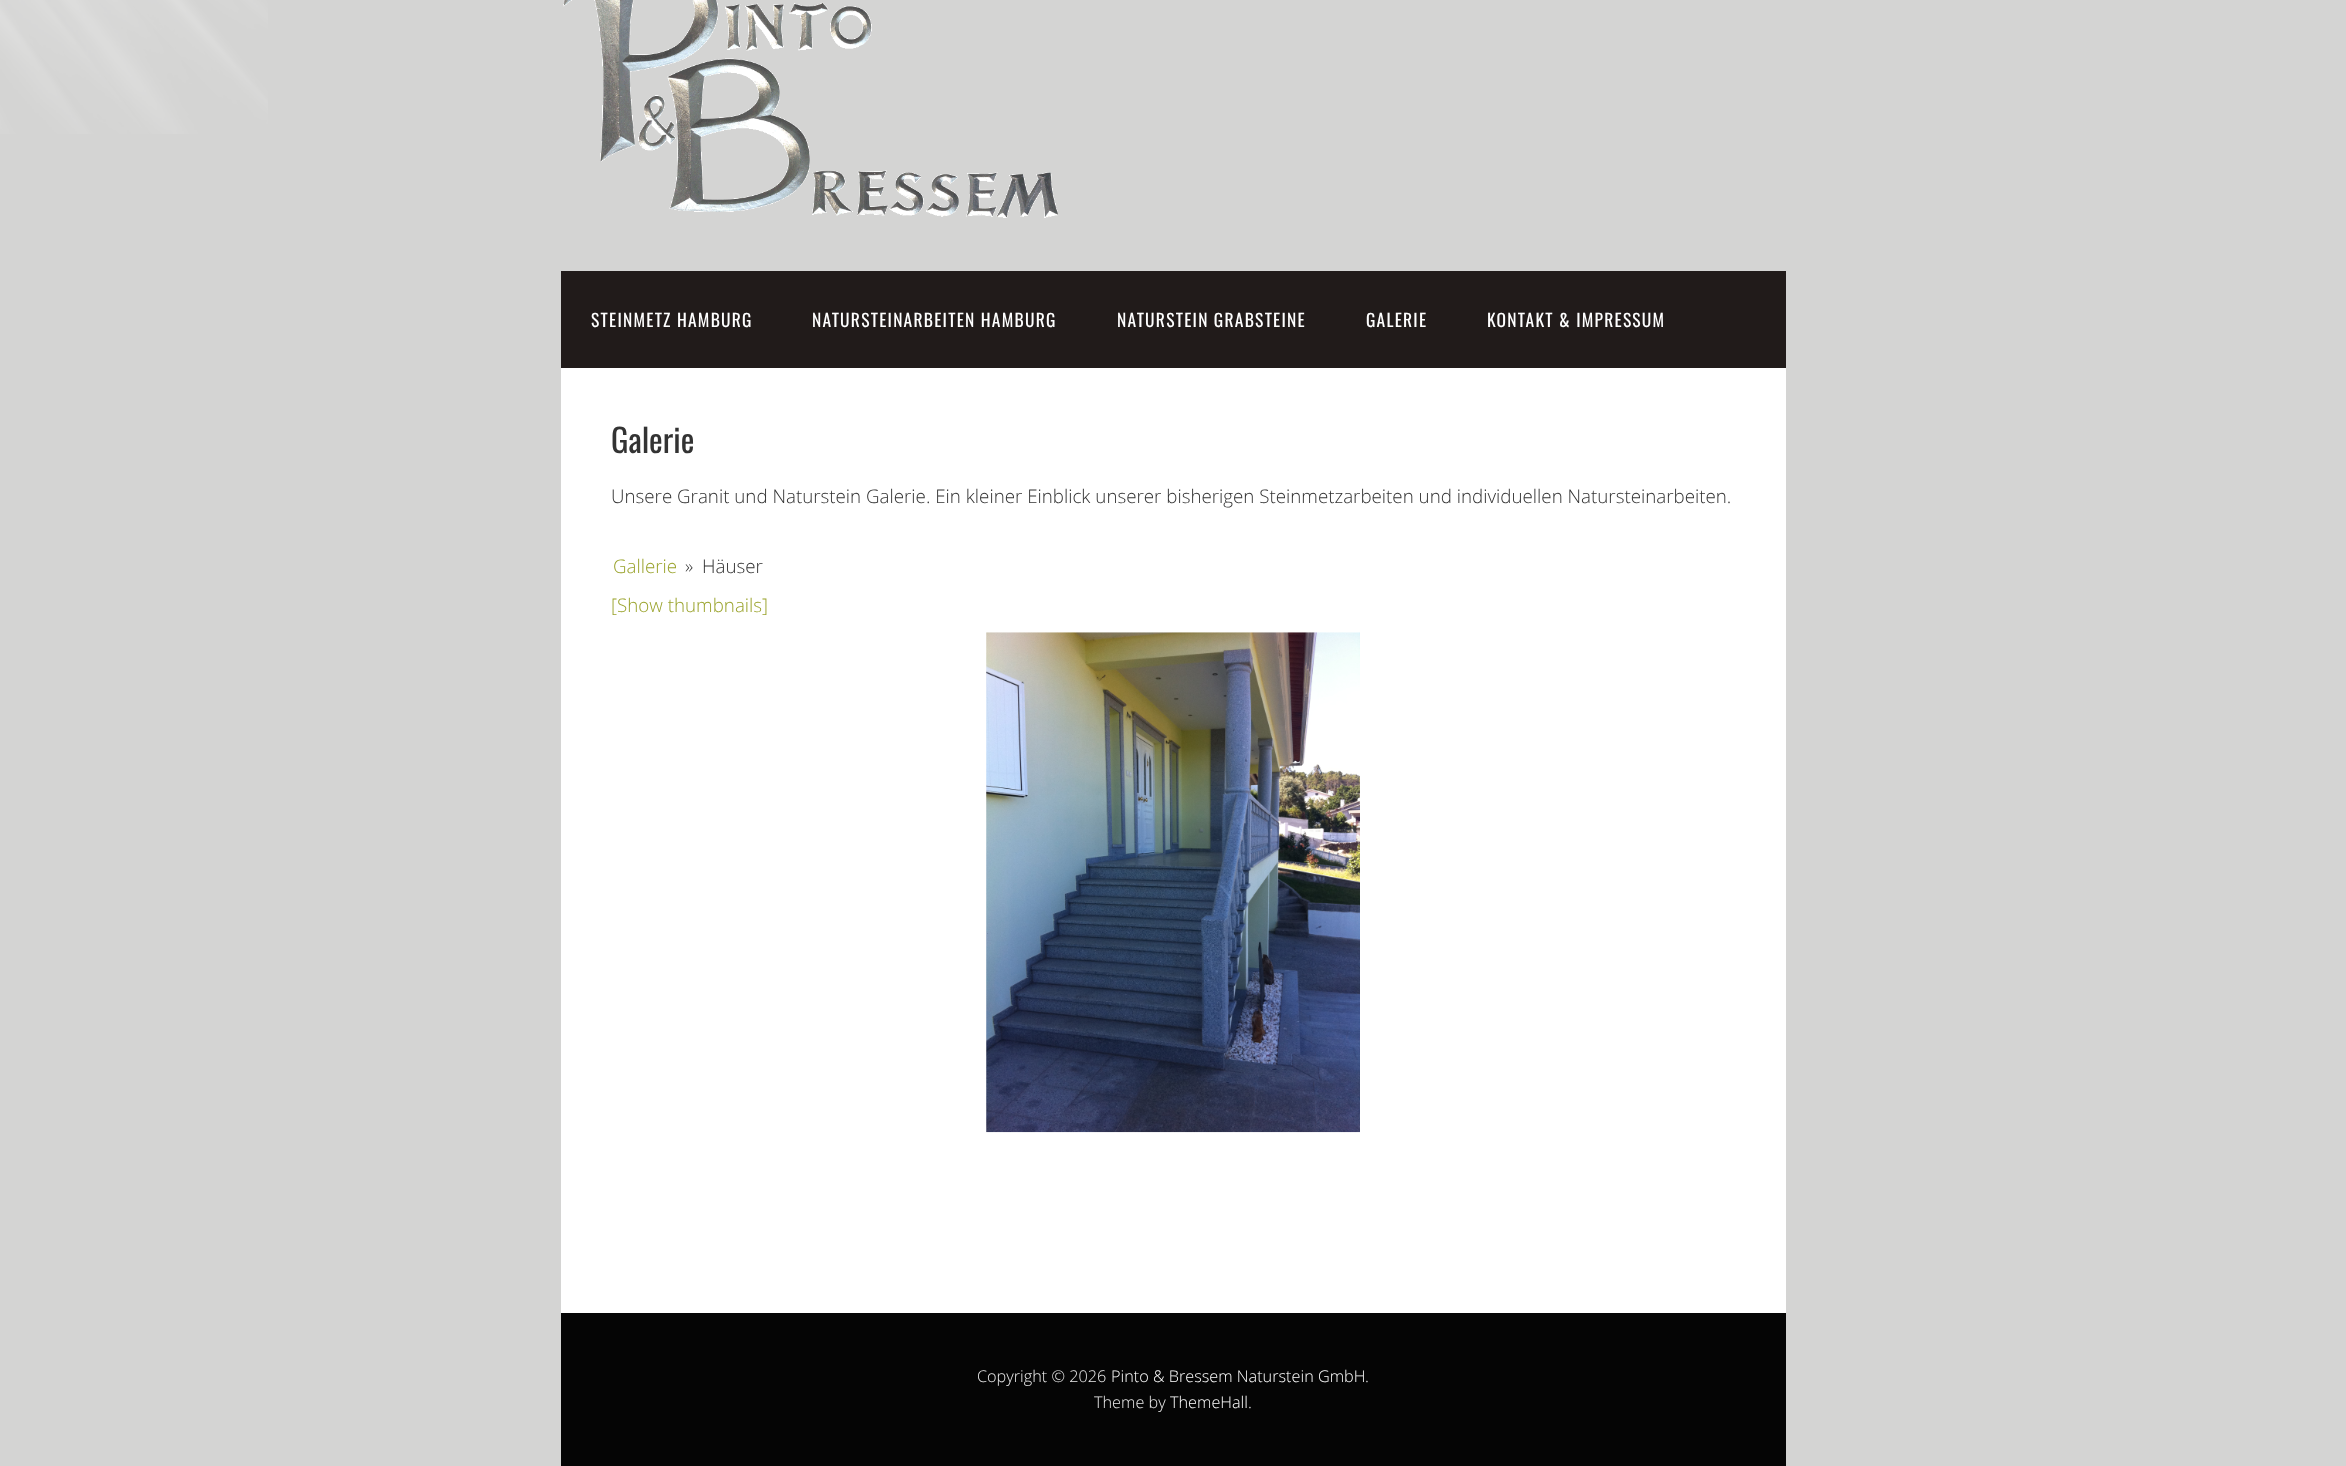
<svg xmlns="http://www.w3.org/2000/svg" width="2346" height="1466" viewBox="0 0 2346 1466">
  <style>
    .t1 { font: 17.5px Oswald; letter-spacing: 1.25px; fill: #fff; }
    .t2 { font: 32.5px Oswald; fill: #333; }
    .t3 { font: 300 18.75px Open Sans; fill: #333; }
    .t4 { font: 300 18.75px Open Sans; fill: #9aa32c; }
    .t5 { font: 300 16.25px Open Sans; fill: #eaeaea; }
    .t6 { font: 300 16.25px Open Sans; fill: #fff; }
  </style>
  <rect width="100%" height="100%" fill="#d4d4d3"/>
  <image x="0" y="0" width="268" height="134" href="images/1.png"/>
  <image x="563" y="0" width="495" height="218" href="images/2.png"/>
  <rect x="561" y="271" width="1225" height="97" fill="#211b1a"/>
  <text x="591" y="327" class="t1">STEINMETZ HAMBURG</text>
  <text x="812" y="327" class="t1">NATURSTEINARBEITEN HAMBURG</text>
  <text x="1117" y="327" class="t1">NATURSTEIN GRABSTEINE</text>
  <text x="1366" y="327" class="t1">GALERIE</text>
  <text x="1487" y="327" class="t1">KONTAKT &amp; IMPRESSUM</text>
  <rect x="561" y="368" width="1225" height="945" fill="#fff"/>
  <text x="611" y="453" class="t2">Galerie</text>
  <text x="611" y="503" class="t3">Unsere Granit und Naturstein Galerie. Ein kleiner Einblick unserer bisherigen Steinmetzarbeiten und individuellen Natursteinarbeiten.</text>
  <text x="613" y="573" class="t4">Gallerie</text>
  <text x="685" y="573" class="t3">»</text>
  <text x="702" y="573" class="t3">Häuser</text>
  <text x="611" y="612" class="t4">[Show thumbnails]</text>
  <image x="986" y="632" width="374" height="501" href="images/3.png"/>
  <rect x="561" y="1313" width="1225" height="153" fill="#050505"/>
  <text x="977" y="1382" class="t5">Copyright © 2026</text>
  <text x="1111" y="1382" class="t6">Pinto &amp; Bressem Naturstein GmbH</text>
  <text x="1365" y="1382" class="t5">.</text>
  <text x="1094" y="1408" class="t5">Theme by</text>
  <text x="1170" y="1408" class="t6">ThemeHall</text>
  <text x="1248" y="1408" class="t5">.</text>
</svg>
